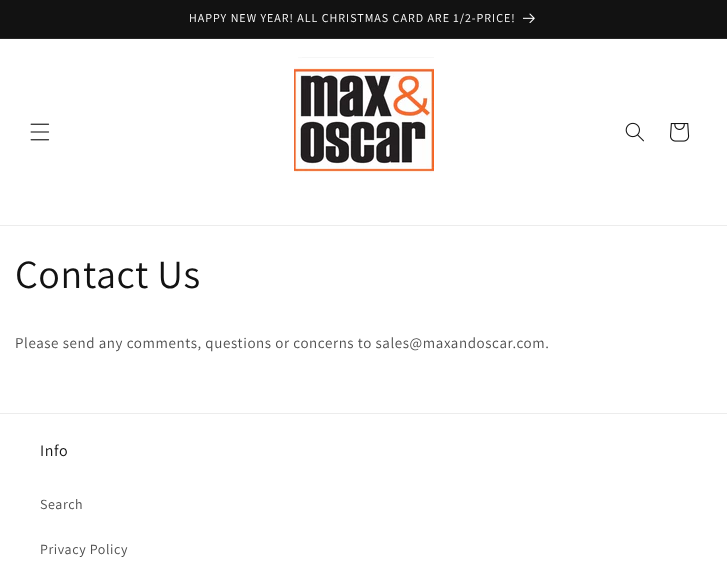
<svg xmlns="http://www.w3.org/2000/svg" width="727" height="576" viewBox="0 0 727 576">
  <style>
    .t1 { font: 12px Assistant; letter-spacing: 1px; fill: #fff; }
    .t2 { font: 40px Assistant; letter-spacing: 0.6px; fill: #121212; }
    .t3 { font: 15px Assistant; letter-spacing: 0.6px; fill: #4d4d4d; }
    .t4 { font: 16px Assistant; letter-spacing: 0.6px; fill: #121212; }
    .t5 { font: 14px Assistant; letter-spacing: 0.6px; fill: #4d4d4d; }
  </style>
  <rect width="100%" height="100%" fill="#fff"/>
  <rect x="0" y="0" width="727" height="38" fill="#121212"/>
  <rect x="0" y="38" width="727" height="1" fill="#252525"/>
  <text x="189" y="22" class="t1">HAPPY NEW YEAR! ALL CHRISTMAS CARD ARE 1/2-PRICE!</text>
  <image x="523" y="13" width="12" height="10" href="images/1.png"/>
  <rect x="0" y="225" width="727" height="1" fill="#ececec"/>
  <image x="30" y="123" width="20" height="18" href="images/2.png"/>
  <image x="294" y="57" width="140" height="116" href="images/3.png"/>
  <image x="625" y="122" width="19" height="20" href="images/4.png"/>
  <image x="670" y="123" width="20" height="19" href="images/5.png"/>
  <text x="15" y="288" class="t2">Contact Us</text>
  <text x="15" y="348" class="t3">Please send any comments, questions or concerns to sales@maxandoscar.com.</text>
  <rect x="0" y="413" width="727" height="1" fill="#ececec"/>
  <text x="40" y="456" class="t4">Info</text>
  <text x="40" y="509" class="t5">Search</text>
  <text x="40" y="554" class="t5">Privacy Policy</text>
</svg>
